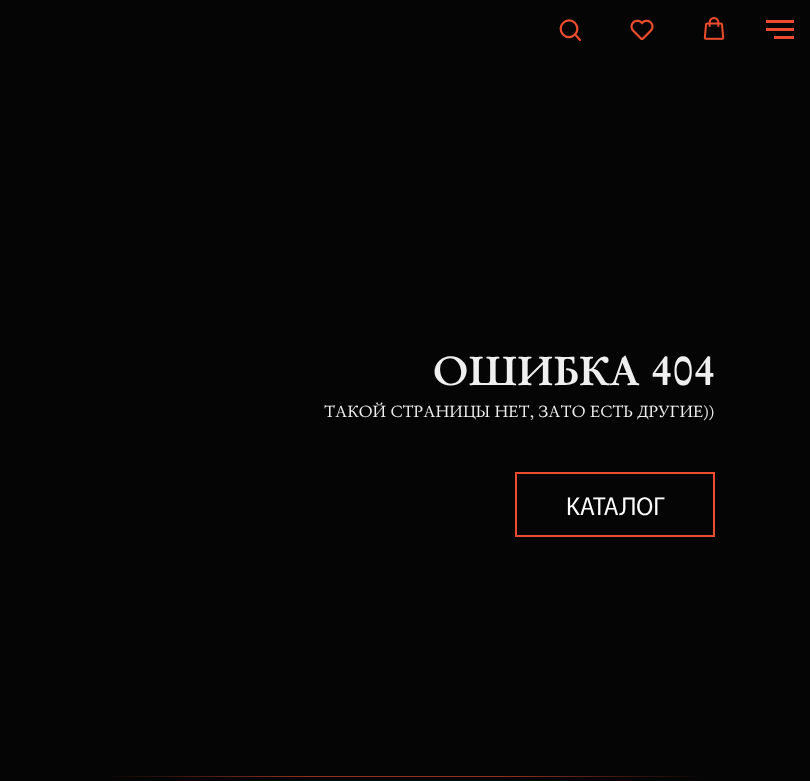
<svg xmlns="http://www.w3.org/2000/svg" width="810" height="781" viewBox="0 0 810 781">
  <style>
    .t1 { font: bold 40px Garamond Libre; fill: #efefef; }
    .t2 { font: 16px Garamond Libre; fill: #efefef; }
    .t3 { font: 24px Murecho; fill: #fff; }
  </style>
  <defs>
    <linearGradient id="g1" gradientUnits="userSpaceOnUse" x1="305" y1="777" x2="105" y2="777"><stop offset="0" stop-color="#91301e"/><stop offset="1" stop-color="#050505"/></linearGradient>
    <linearGradient id="g2" gradientUnits="userSpaceOnUse" x1="505" y1="777" x2="705" y2="777"><stop offset="0" stop-color="#91301e"/><stop offset="1" stop-color="#050505"/></linearGradient>
  </defs>
  <rect width="100%" height="100%" fill="#050505"/>
  <path d="M575 23C582.5 31 570.5 42.5 563 34.5C555.5 26.5 567.5 15 575 23Z" fill="none" stroke="#ee4c2e" stroke-width="2.2"/>
  <path d="M576 35.5L580 40" fill="none" stroke="#ee4c2e" stroke-width="2.2" stroke-linecap="round"/>
  <image x="630" y="19" width="24" height="22" href="images/1.png"/>
  <image x="703" y="17" width="22" height="23" href="images/2.png"/>
  <rect x="766" y="20" width="28" height="3" fill="#ee4c2e"/>
  <rect x="766" y="28" width="28" height="3" fill="#ee4c2e"/>
  <rect x="774" y="36" width="20" height="3" fill="#ee4c2e"/>
  <text x="433" y="385" class="t1">ОШИБКА 404</text>
  <text x="324" y="417" class="t2">ТАКОЙ СТРАНИЦЫ НЕТ, ЗАТО ЕСТЬ ДРУГИЕ))</text>
  <rect x="516" y="473" width="198" height="63" fill="none" stroke="#ee4c2e" stroke-width="2"/>
  <text x="566" y="515" class="t3">КАТАЛОГ</text>
  <rect x="105" y="776" width="200" height="1" fill="url(#g1)"/>
  <rect x="305" y="776" width="200" height="1" fill="#91301e"/>
  <rect x="505" y="776" width="200" height="1" fill="url(#g2)"/>
</svg>
